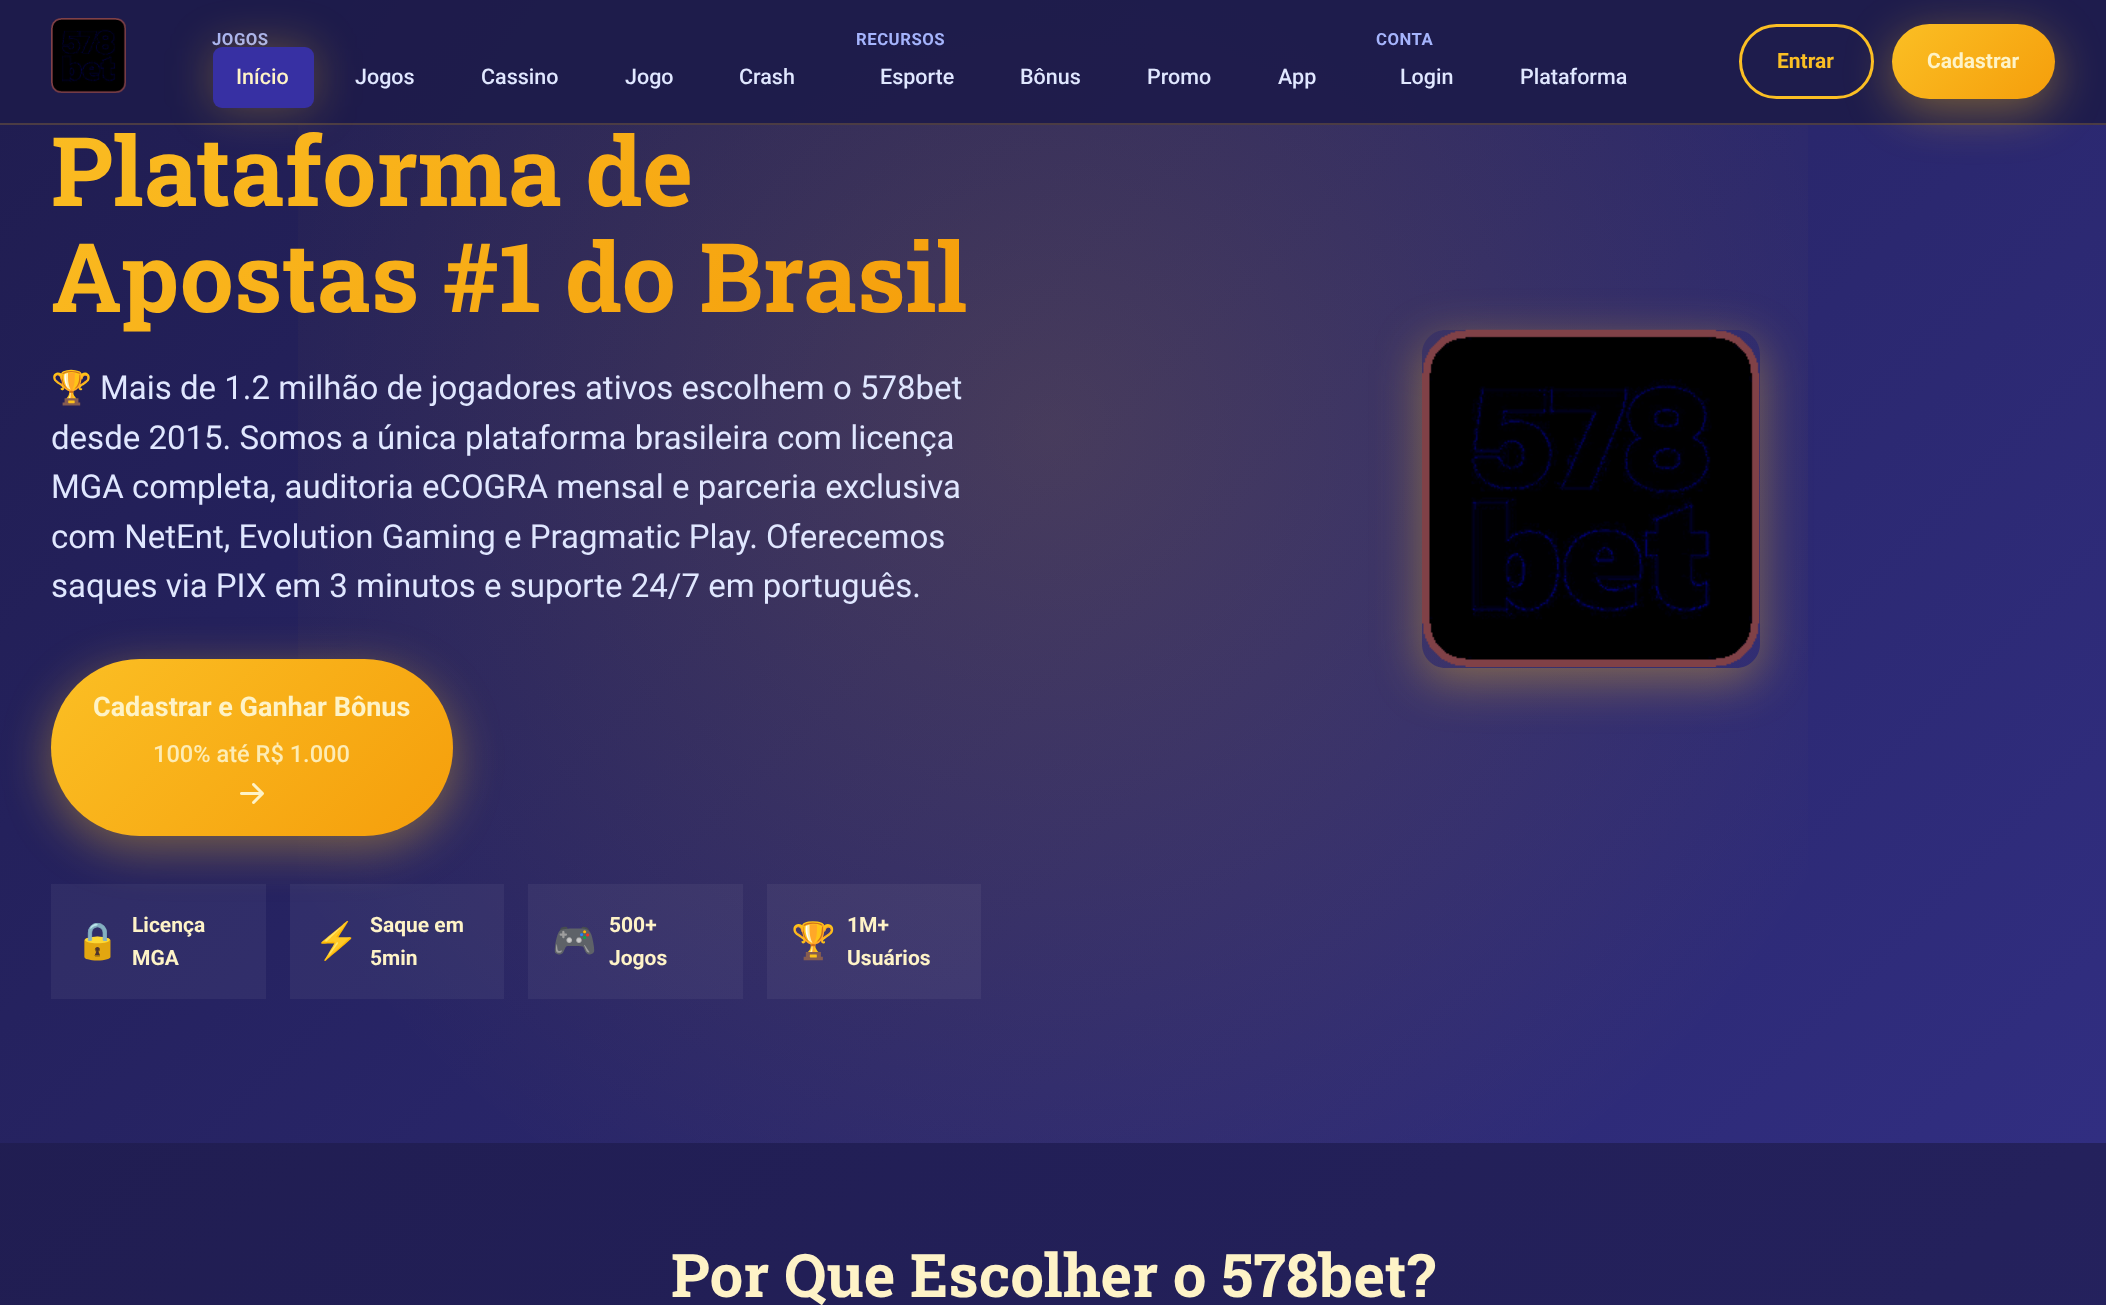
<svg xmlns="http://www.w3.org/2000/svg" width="2106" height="1305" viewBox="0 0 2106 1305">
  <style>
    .t1 { font: bold 16.75px Roboto; letter-spacing: 0.5px; fill: #a5b4fc; }
    .t2 { font: 500 21.5px Roboto; fill: #fef3c7; }
    .t3 { font: 500 21.5px Roboto; fill: #e0e7ff; }
    .t4 { font: bold 21px Roboto; fill: #fbbf24; }
    .t5 { font: bold 21px Roboto; fill: #fef3c7; }
    .t6 { font: bold 96px Roboto Slab; fill: url(#g1); }
    .t7 { font: 33px Noto Color Emoji; fill: #e0e7ff; }
    .t8 { font: 33px Roboto; fill: #e0e7ff; }
    .t9 { font: bold 27px Roboto; fill: #fef3c7; }
    .t10 { font: 500 23.6px Roboto; fill: #fdecb5; }
    .t11 { font: 36px Noto Color Emoji; fill: #fef3c7; }
    .t12 { font: bold 60px Roboto Slab; fill: #fef3c7; }
  </style>
  <defs>
    <linearGradient id="g1" gradientUnits="userSpaceOnUse" x1="204" y1="-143" x2="828" y2="481"><stop offset="0" stop-color="#fbbf24"/><stop offset="1" stop-color="#f59e0b"/></linearGradient>
    <linearGradient id="g2" gradientUnits="userSpaceOnUse" x1="-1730" y1="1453" x2="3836" y2="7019"><stop offset="0" stop-color="#1e1b4b"/><stop offset="1" stop-color="#312e81"/></linearGradient>
    <linearGradient id="g3" gradientUnits="userSpaceOnUse" x1="171" y1="-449" x2="1935" y2="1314"><stop offset="0" stop-color="#1e1b4b"/><stop offset="1" stop-color="#312e81"/></linearGradient>
    <radialGradient id="g4" gradientUnits="userSpaceOnUse" cx="1053" cy="433" r="1270"><stop offset="0" stop-color="#fbbf24" stop-opacity="0.15"/><stop offset="0.7" stop-color="#fbbf24" stop-opacity="0"/></radialGradient>
    <linearGradient id="g5" gradientUnits="userSpaceOnUse" x1="1914" y1="1.9" x2="2033" y2="121"><stop offset="0" stop-color="#fbbf24"/><stop offset="1" stop-color="#f59e0b"/></linearGradient>
    <linearGradient id="g6" gradientUnits="userSpaceOnUse" x1="107" y1="602" x2="397" y2="892"><stop offset="0" stop-color="#fbbf24"/><stop offset="1" stop-color="#f59e0b"/></linearGradient>
    <clipPath id="clip1"><path d="M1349 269H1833V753H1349ZM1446 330H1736C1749.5 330 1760 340.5 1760 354V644C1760 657.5 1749.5 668 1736 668H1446C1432.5 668 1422 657.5 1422 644V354C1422 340.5 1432.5 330 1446 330Z" clip-rule="evenodd"/></clipPath>
  </defs>
  <rect width="100%" height="100%" fill="#fff"/>
  <rect x="0" y="1143" width="2106" height="162" fill="url(#g2)"/>
  <rect x="0" y="0" width="2106" height="1143" fill="url(#g3)"/>
  <rect x="298" y="0" width="1510" height="1143" fill="url(#g4)"/>
  <rect x="0" y="0" width="2106" height="123" fill="#1e1b4bf2"/>
  <rect x="0" y="123" width="2106" height="2" fill="#4b3c44"/>
  <image x="51" y="18" width="75" height="75" href="images/1.png"/>
  <text x="212" y="45" class="t1">JOGOS</text>
  <rect x="213" y="47" width="101" height="61" rx="9" fill="#fbbf244d" filter="blur(22.5px)"/>
  <rect x="213" y="47" width="101" height="61" rx="9" fill="#3730a3"/>
  <text x="236" y="84" class="t2">Início</text>
  <text x="355" y="84" class="t3">Jogos</text>
  <text x="481" y="84" class="t3">Cassino</text>
  <text x="625" y="84" class="t3">Jogo</text>
  <text x="739" y="84" class="t3">Crash</text>
  <text x="856" y="45" class="t1">RECURSOS</text>
  <text x="880" y="84" class="t3">Esporte</text>
  <text x="1020" y="84" class="t3">Bônus</text>
  <text x="1147" y="84" class="t3">Promo</text>
  <text x="1278" y="84" class="t3">App</text>
  <text x="1376" y="45" class="t1">CONTA</text>
  <text x="1400" y="84" class="t3">Login</text>
  <text x="1520" y="84" class="t3">Plataforma</text>
  <rect x="1740.5" y="25.5" width="132" height="72" rx="36" fill="none" stroke="#fbbf24" stroke-width="3"/>
  <text x="1777" y="68" class="t4">Entrar</text>
  <rect x="1892" y="36" width="163" height="75" rx="37.5" fill="#fbbf2466" filter="blur(24px)"/>
  <rect x="1892" y="24" width="163" height="75" rx="37.5" fill="url(#g5)"/>
  <text x="1927" y="68" class="t5">Cadastrar</text>
  <text x="51" y="206" class="t6">Plataforma de</text>
  <text x="51" y="312" class="t6">Apostas #1 do Brasil</text>
  <text x="51" y="399" class="t7">🏆</text>
  <text x="100" y="399" class="t8">Mais de 1.2 milhão de jogadores ativos escolhem o 578bet</text>
  <text x="51" y="449" class="t8">desde 2015. Somos a única plataforma brasileira com licença</text>
  <text x="51" y="498" class="t8">MGA completa, auditoria eCOGRA mensal e parceria exclusiva</text>
  <text x="51" y="548" class="t8">com NetEnt, Evolution Gaming e Pragmatic Play. Oferecemos</text>
  <text x="51" y="597" class="t8">saques via PIX em 3 minutos e suporte 24/7 em português.</text>
  <rect x="51" y="671" width="402" height="177" rx="88.5" fill="#fbbf2466" filter="blur(24px)"/>
  <rect x="51" y="659" width="402" height="177" rx="88.5" fill="url(#g6)"/>
  <text x="93" y="716" class="t9">Cadastrar e Ganhar Bônus</text>
  <text x="153" y="762" class="t10">100% até R$ 1.000</text>
  <image x="240" y="783" width="24" height="21" href="images/2.png"/>
  <rect x="51" y="884" width="215" height="115" fill="#ffffff0d"/>
  <text x="75" y="953" class="t11">🔒</text>
  <text x="132" y="932" class="t5">Licença</text>
  <text x="132" y="965" class="t5">MGA</text>
  <rect x="290" y="884" width="214" height="115" fill="#ffffff0d"/>
  <text x="314" y="953" class="t11">⚡</text>
  <text x="370" y="932" class="t5">Saque em</text>
  <text x="370" y="965" class="t5">5min</text>
  <rect x="528" y="884" width="215" height="115" fill="#ffffff0d"/>
  <text x="552" y="953" class="t11">🎮</text>
  <text x="609" y="932" class="t5">500+</text>
  <text x="609" y="965" class="t5">Jogos</text>
  <rect x="767" y="884" width="214" height="115" fill="#ffffff0d"/>
  <text x="791" y="953" class="t11">🏆</text>
  <text x="847" y="932" class="t5">1M+</text>
  <text x="847" y="965" class="t5">Usuários</text>
  <g clip-path="url(#clip1)">
    <rect x="1422" y="342" width="338" height="338" rx="24" fill="#fbbf2466" filter="blur(24px)"/>
  </g>
  <image x="1422" y="329" width="338" height="338" href="images/3.png"/>
  <text x="671" y="1297" class="t12">Por Que Escolher o 578bet?</text>
</svg>
